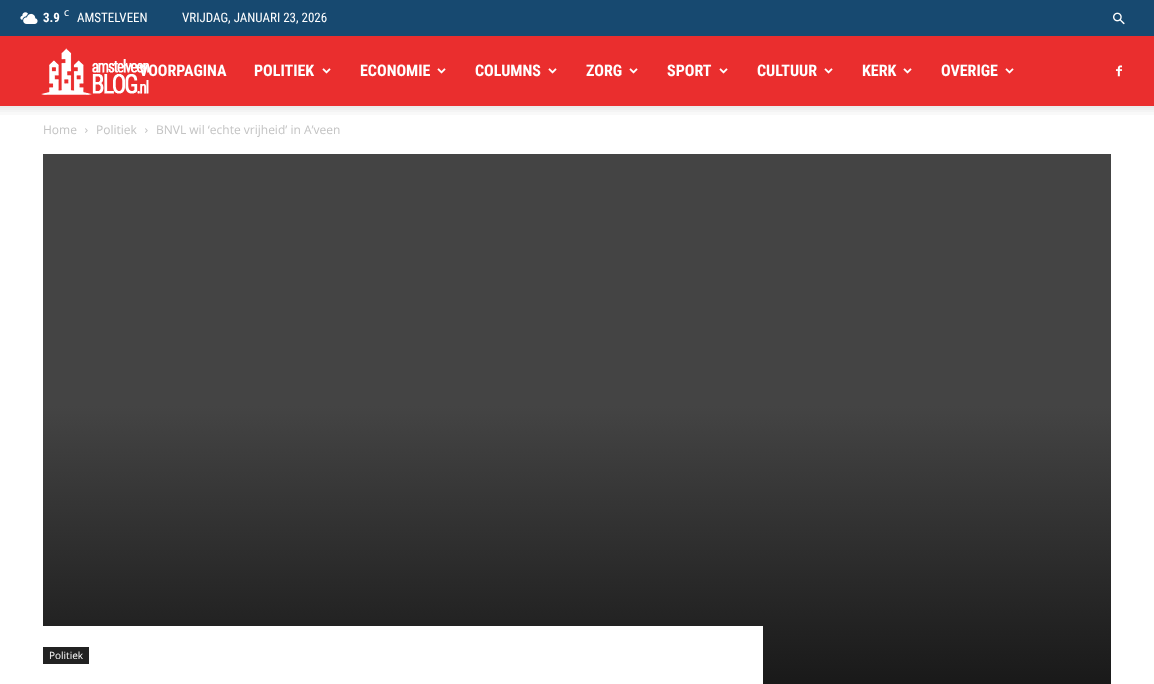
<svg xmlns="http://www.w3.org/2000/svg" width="1154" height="684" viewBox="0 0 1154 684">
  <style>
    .t1 { font: bold 13px Roboto Condensed; fill: #fff; }
    .t2 { font: 600 8px Open Sans; fill: #fff; }
    .t3 { font: 13px Roboto Condensed; fill: #fff; }
    .t4 { font: bold 16px Roboto Condensed; fill: #fff; }
    .t5 { font: 12px Open Sans; fill: #c3c3c3; }
    .t6 { font: 10px Open Sans; fill: #fff; }
  </style>
  <defs>
    <linearGradient id="g1" gradientUnits="userSpaceOnUse" x1="577" y1="406" x2="577" y2="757"><stop offset="0" stop-color="#444"/><stop offset="1" stop-color="#0e0e0e"/></linearGradient>
  </defs>
  <rect width="100%" height="100%" fill="#fff"/>
  <rect x="0" y="0" width="1154" height="36" fill="#174970"/>
  <image x="20" y="12" width="18" height="12" href="images/1.png"/>
  <text x="43" y="22" class="t1">3.9</text>
  <text x="64" y="16" class="t2">C</text>
  <text x="77" y="22" class="t3">AMSTELVEEN</text>
  <text x="182" y="22" class="t3">VRIJDAG, JANUARI 23, 2026</text>
  <image x="1113" y="12" width="12" height="13" href="images/2.png"/>
  <rect x="0" y="36" width="1154" height="70" fill="#ea2e2e"/>
  <image x="41" y="48" width="109" height="47" href="images/3.png"/>
  <text x="139" y="76" class="t4">VOORPAGINA</text>
  <text x="254" y="76" class="t4">POLITIEK</text>
  <image x="322" y="68" width="9" height="6" href="images/4.png"/>
  <text x="360" y="76" class="t4">ECONOMIE</text>
  <image x="437" y="68" width="9" height="6" href="images/4.png"/>
  <text x="475" y="76" class="t4">COLUMNS</text>
  <image x="548" y="68" width="9" height="6" href="images/4.png"/>
  <text x="586" y="76" class="t4">ZORG</text>
  <image x="629" y="68" width="9" height="6" href="images/4.png"/>
  <text x="667" y="76" class="t4">SPORT</text>
  <image x="719" y="68" width="9" height="6" href="images/4.png"/>
  <text x="757" y="76" class="t4">CULTUUR</text>
  <image x="824" y="68" width="9" height="6" href="images/4.png"/>
  <text x="862" y="76" class="t4">KERK</text>
  <image x="903" y="68" width="9" height="6" href="images/4.png"/>
  <text x="941" y="76" class="t4">OVERIGE</text>
  <image x="1005" y="68" width="9" height="6" href="images/4.png"/>
  <image x="1116" y="65" width="6" height="12" href="images/5.png"/>
  <image x="0" y="106" width="1154" height="9" href="images/6.png"/>
  <text x="43" y="134" class="t5">Home</text>
  <image x="85" y="128" width="3" height="5" href="images/7.png"/>
  <text x="96" y="134" class="t5">Politiek</text>
  <image x="145" y="128" width="3" height="5" href="images/7.png"/>
  <text x="156" y="134" class="t5">BNVL wil ‘echte vrijheid’ in A’veen</text>
  <rect x="43" y="154" width="1068" height="252" fill="#444"/>
  <rect x="43" y="406" width="1068" height="278" fill="url(#g1)"/>
  <rect x="43" y="626" width="720" height="58" fill="#fff"/>
  <rect x="43" y="647" width="46" height="17" fill="#222"/>
  <text x="49" y="659" class="t6">Politiek</text>
</svg>
